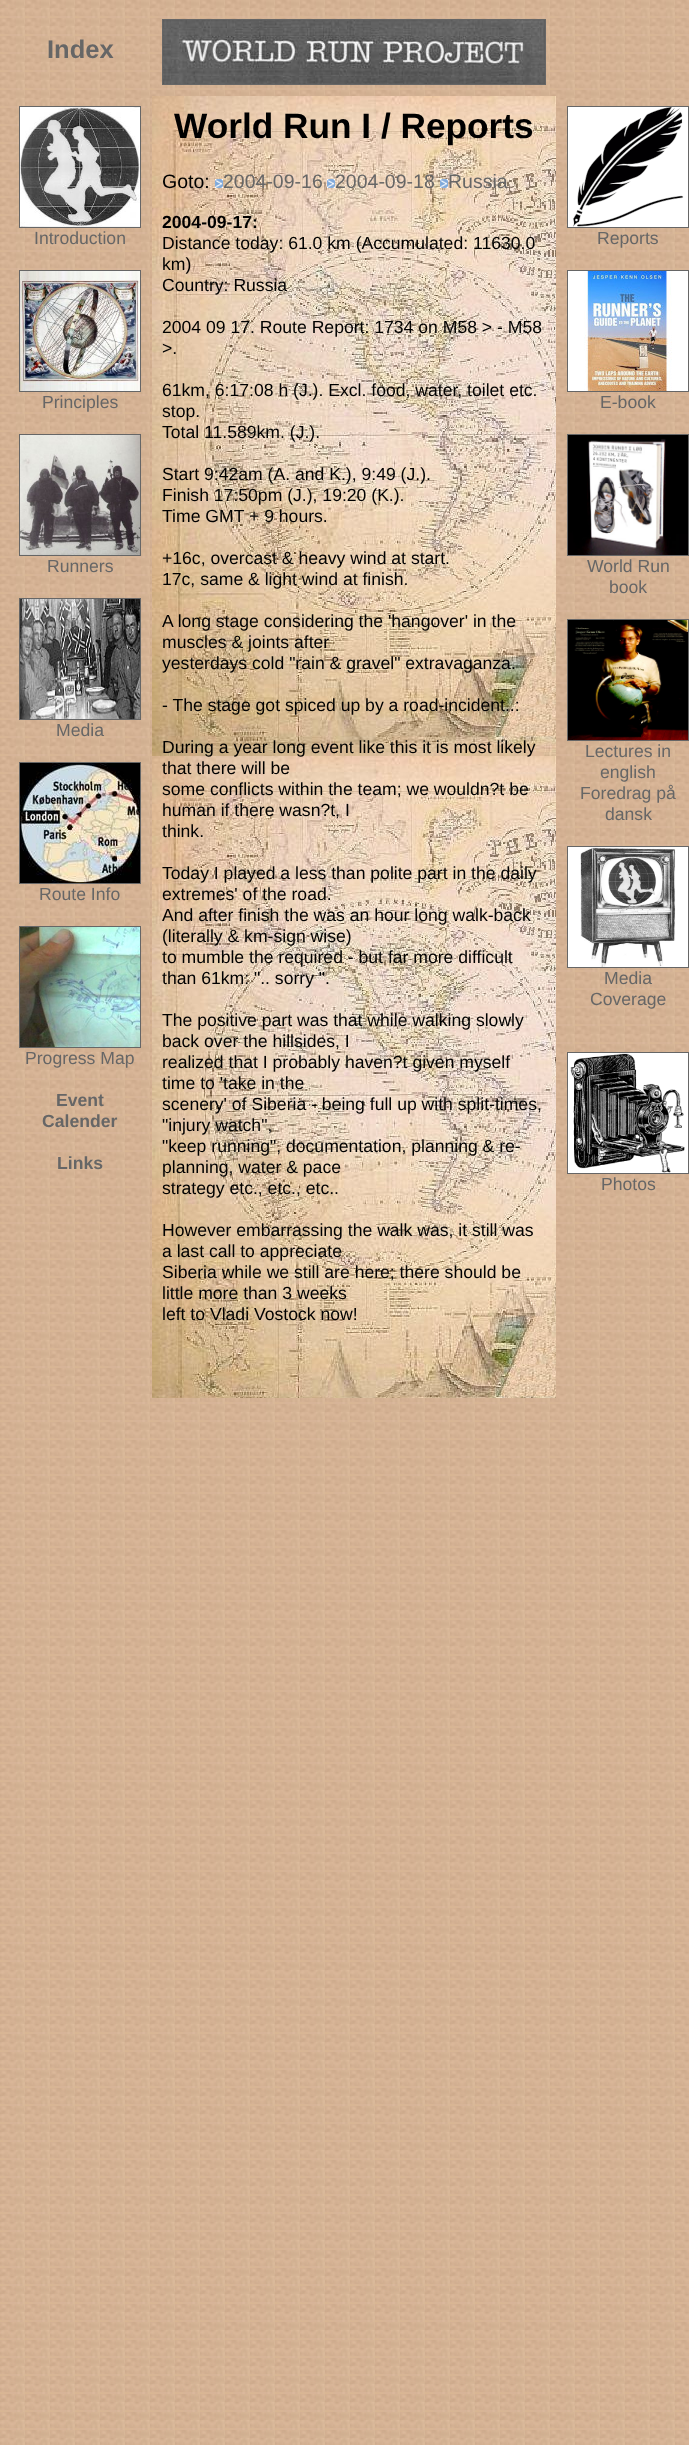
<svg xmlns="http://www.w3.org/2000/svg" width="689" height="2445" viewBox="0 0 689 2445">
  <style>
    .t1 { font: bold 25.5px Liberation Sans; fill: #666; }
    .t2 { font: 17.6px Liberation Sans; fill: #666; }
    .t3 { font: bold 17.6px Liberation Sans; fill: #666; }
    .t4 { font: bold 35.25px Liberation Sans; fill: #000; }
    .t5 { font: 19.5px Liberation Sans; fill: #000; }
    .t6 { font: 19.5px Liberation Sans; fill: #666; }
    .t7 { font: bold 17.6px Liberation Sans; fill: #000; }
    .t8 { font: 17.6px Liberation Sans; fill: #000; }
  </style>
  <rect width="100%" height="100%" fill="#fff"/>
  <image x="0" y="0" width="689" height="2445" href="images/1.png"/>
  <text x="47" y="58" class="t1">Index</text>
  <rect x="162.5" y="19.5" width="383" height="65" fill="none" stroke="#666"/>
  <image x="163" y="20" width="382" height="64" href="images/2.png"/>
  <rect x="19.5" y="106.5" width="121" height="121" fill="none" stroke="#666"/>
  <image x="20" y="107" width="120" height="120" href="images/3.png"/>
  <text x="34" y="244" class="t2">Introduction</text>
  <rect x="19.5" y="270.5" width="121" height="121" fill="none" stroke="#666"/>
  <image x="20" y="271" width="120" height="120" href="images/4.png"/>
  <text x="42" y="408" class="t2">Principles</text>
  <rect x="19.5" y="434.5" width="121" height="121" fill="none" stroke="#666"/>
  <image x="20" y="435" width="120" height="120" href="images/5.png"/>
  <text x="47" y="572" class="t2">Runners</text>
  <rect x="19.5" y="598.5" width="121" height="121" fill="none" stroke="#666"/>
  <image x="20" y="599" width="120" height="120" href="images/6.png"/>
  <text x="56" y="736" class="t2">Media</text>
  <rect x="19.5" y="762.5" width="121" height="121" fill="none" stroke="#666"/>
  <image x="20" y="763" width="120" height="120" href="images/7.png"/>
  <text x="39" y="900" class="t2">Route Info</text>
  <rect x="19.5" y="926.5" width="121" height="121" fill="none" stroke="#666"/>
  <image x="20" y="927" width="120" height="120" href="images/8.png"/>
  <text x="25" y="1064" class="t2">Progress Map</text>
  <text x="56" y="1106" class="t3">Event</text>
  <text x="42" y="1127" class="t3">Calender</text>
  <text x="57" y="1169" class="t3">Links</text>
  <image x="152" y="96" width="404" height="1302" href="images/9.png"/>
  <text x="174" y="138" class="t4">World Run I / Reports</text>
  <text x="162" y="188" class="t5">Goto:</text>
  <image x="215" y="179" width="8" height="9" href="images/10.png"/>
  <text x="223" y="188" class="t6">2004-09-16</text>
  <image x="327" y="179" width="8" height="9" href="images/10.png"/>
  <text x="335" y="188" class="t6">2004-09-18</text>
  <image x="440" y="179" width="8" height="9" href="images/10.png"/>
  <text x="448" y="188" class="t6">Russia</text>
  <text x="162" y="228" class="t7">2004-09-17:</text>
  <text x="162" y="249" class="t8">Distance today: 61.0 km (Accumulated: 11630.0</text>
  <text x="162" y="270" class="t8">km)</text>
  <text x="162" y="291" class="t8">Country: Russia</text>
  <text x="162" y="333" class="t8">2004 09 17. Route Report: 1734 on M58 &gt; - M58</text>
  <text x="162" y="354" class="t8">&gt;.</text>
  <text x="162" y="396" class="t8">61km, 6:17:08 h (J.). Excl. food, water, toilet etc.</text>
  <text x="162" y="417" class="t8">stop.</text>
  <text x="162" y="438" class="t8">Total 11.589km. (J.).</text>
  <text x="162" y="480" class="t8">Start 9:42am (A. and K.), 9:49 (J.).</text>
  <text x="162" y="501" class="t8">Finish 17:50pm (J.), 19:20 (K.).</text>
  <text x="162" y="522" class="t8">Time GMT + 9 hours.</text>
  <text x="162" y="564" class="t8">+16c, overcast &amp; heavy wind at start.</text>
  <text x="162" y="585" class="t8">17c, same &amp; light wind at finish.</text>
  <text x="162" y="627" class="t8">A long stage considering the 'hangover' in the</text>
  <text x="162" y="648" class="t8">muscles &amp; joints after</text>
  <text x="162" y="669" class="t8">yesterdays cold "rain &amp; gravel" extravaganza.</text>
  <text x="162" y="711" class="t8">- The stage got spiced up by a road-incident..:</text>
  <text x="162" y="753" class="t8">During a year long event like this it is most likely</text>
  <text x="162" y="774" class="t8">that there will be</text>
  <text x="162" y="795" class="t8">some conflicts within the team; we wouldn?t be</text>
  <text x="162" y="816" class="t8">human if there wasn?t, I</text>
  <text x="162" y="837" class="t8">think.</text>
  <text x="162" y="879" class="t8">Today I played a less than polite part in the daily</text>
  <text x="162" y="900" class="t8">extremes' of the road.</text>
  <text x="162" y="921" class="t8">And after finish the was an hour long walk-back</text>
  <text x="162" y="942" class="t8">(literally &amp; km-sign wise)</text>
  <text x="162" y="963" class="t8">to mumble the required - but far more difficult</text>
  <text x="162" y="984" class="t8">than 61km: ".. sorry ".</text>
  <text x="162" y="1026" class="t8">The positive part was that while walking slowly</text>
  <text x="162" y="1047" class="t8">back over the hillsides, I</text>
  <text x="162" y="1068" class="t8">realized that I probably haven?t given myself</text>
  <text x="162" y="1089" class="t8">time to 'take in the</text>
  <text x="162" y="1110" class="t8">scenery' of Siberia - being full up with split-times,</text>
  <text x="162" y="1131" class="t8">"injury watch",</text>
  <text x="162" y="1152" class="t8">"keep running", documentation, planning &amp; re-</text>
  <text x="162" y="1173" class="t8">planning, water &amp; pace</text>
  <text x="162" y="1194" class="t8">strategy etc., etc., etc..</text>
  <text x="162" y="1236" class="t8">However embarrassing the walk was, it still was</text>
  <text x="162" y="1257" class="t8">a last call to appreciate</text>
  <text x="162" y="1278" class="t8">Siberia while we still are here; there should be</text>
  <text x="162" y="1299" class="t8">little more than 3 weeks</text>
  <text x="162" y="1320" class="t8">left to Vladi Vostock now!</text>
  <rect x="567.5" y="106.5" width="121" height="121" fill="none" stroke="#666"/>
  <image x="568" y="107" width="120" height="120" href="images/11.png"/>
  <text x="597" y="244" class="t2">Reports</text>
  <rect x="567.5" y="270.5" width="121" height="121" fill="none" stroke="#666"/>
  <image x="568" y="271" width="120" height="120" href="images/12.png"/>
  <text x="600" y="408" class="t2">E-book</text>
  <rect x="567.5" y="434.5" width="121" height="121" fill="none" stroke="#666"/>
  <image x="568" y="435" width="120" height="120" href="images/13.png"/>
  <text x="587" y="572" class="t2">World Run</text>
  <text x="609" y="593" class="t2">book</text>
  <rect x="567.5" y="619.5" width="121" height="121" fill="none" stroke="#666"/>
  <image x="568" y="620" width="120" height="120" href="images/14.png"/>
  <text x="585" y="757" class="t2">Lectures in</text>
  <text x="600" y="778" class="t2">english</text>
  <text x="580" y="799" class="t2">Foredrag på</text>
  <text x="605" y="820" class="t2">dansk</text>
  <rect x="567.5" y="846.5" width="121" height="121" fill="none" stroke="#666"/>
  <image x="568" y="847" width="120" height="120" href="images/15.png"/>
  <text x="604" y="984" class="t2">Media</text>
  <text x="590" y="1005" class="t2">Coverage</text>
  <rect x="567.5" y="1052.5" width="121" height="121" fill="none" stroke="#666"/>
  <image x="568" y="1053" width="120" height="120" href="images/16.png"/>
  <text x="601" y="1190" class="t2">Photos</text>
</svg>
